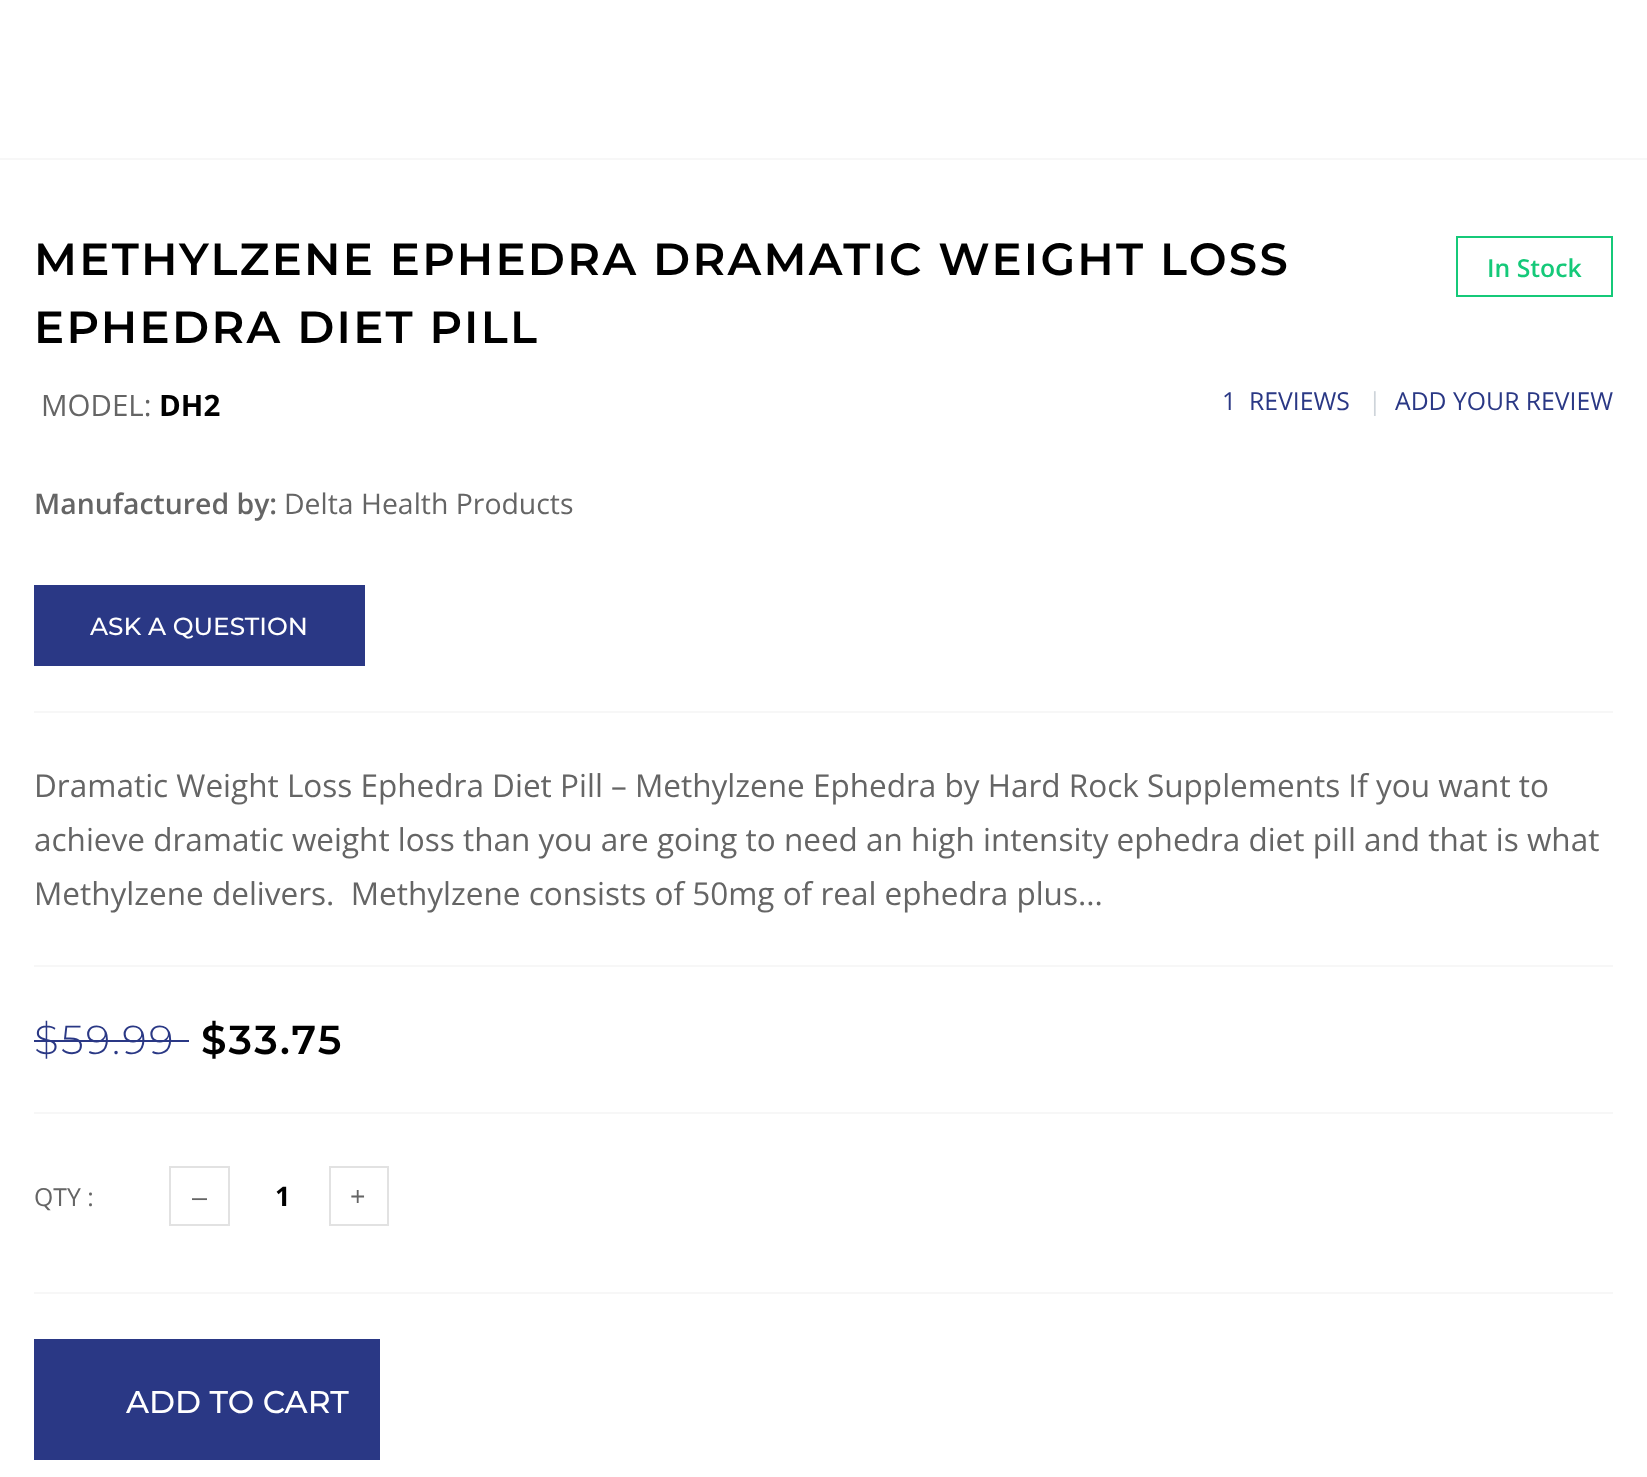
<svg xmlns="http://www.w3.org/2000/svg" width="1647" height="1477" viewBox="0 0 1647 1477">
  <style>
    .t1 { font: 600 45px Montserrat; letter-spacing: 2.25px; fill: #000; }
    .t2 { font: 600 24.75px Open Sans; fill: #15c979; }
    .t3 { font: 29.5px Open Sans; fill: #656565; }
    .t4 { font: bold 29.5px Open Sans; fill: #000; }
    .t5 { font: 24.75px Open Sans; fill: #2a3885; }
    .t6 { font: 24.75px Open Sans; fill: #ced4da; }
    .t7 { font: 600 28.4px Open Sans; fill: #656565; }
    .t8 { font: 28.4px Open Sans; fill: #656565; }
    .t9 { font: 500 24.75px Montserrat; fill: #fff; }
    .t10 { font: 31.5px Open Sans; fill: #656565; }
    .t11 { font: 300 40.5px Montserrat; letter-spacing: 2.25px; fill: #2a3885; }
    .t12 { font: 600 40.5px Montserrat; letter-spacing: 2.25px; fill: #000; }
    .t13 { font: 24.75px Open Sans; fill: #656565; }
    .t14 { font: 27px Liberation Sans; fill: #656565; }
    .t15 { font: bold 27px Open Sans; fill: #000; }
    .t16 { font: 27px Open Sans; fill: #656565; }
    .t17 { font: 500 31.5px Montserrat; fill: #fff; }
  </style>
  <rect width="100%" height="100%" fill="#fff"/>
  <rect x="0" y="158" width="1647" height="2" fill="#f7f7f7"/>
  <text x="34" y="275" class="t1">METHYLZENE EPHEDRA DRAMATIC WEIGHT LOSS</text>
  <text x="34" y="343" class="t1">EPHEDRA DIET PILL</text>
  <rect x="1457" y="237" width="155" height="59" fill="none" stroke="#15c979" stroke-width="2"/>
  <text x="1487" y="277" class="t2">In Stock</text>
  <text x="41" y="416" class="t3">MODEL:</text>
  <text x="159" y="416" class="t4">DH2</text>
  <text x="1222" y="410" class="t5" xml:space="preserve">1  REVIEWS</text>
  <text x="1368" y="410" class="t6">|</text>
  <text x="1395" y="410" class="t5">ADD YOUR REVIEW</text>
  <text x="34" y="514" class="t7">Manufactured by:</text>
  <text x="284" y="514" class="t8">Delta Health Products</text>
  <rect x="34" y="585" width="331" height="81" fill="#2a3885"/>
  <text x="90" y="635" class="t9">ASK A QUESTION</text>
  <rect x="34" y="711" width="1579" height="2" fill="#f7f7f7"/>
  <rect x="34" y="965" width="1579" height="2" fill="#f7f7f7"/>
  <text x="34" y="797" class="t10">Dramatic Weight Loss Ephedra Diet Pill – Methylzene Ephedra by Hard Rock Supplements If you want to</text>
  <text x="34" y="851" class="t10">achieve dramatic weight loss than you are going to need an high intensity ephedra diet pill and that is what</text>
  <text x="34" y="905" class="t10" xml:space="preserve">Methylzene delivers.  Methylzene consists of 50mg of real ephedra plus...</text>
  <text x="34" y="1054" class="t11">$59.99</text>
  <rect x="34" y="1040" width="155" height="2" fill="#2a3885"/>
  <text x="201" y="1054" class="t12">$33.75</text>
  <rect x="34" y="1112" width="1579" height="2" fill="#f7f7f7"/>
  <text x="34" y="1206" class="t13">QTY :</text>
  <rect x="170" y="1167" width="59" height="58" fill="none" stroke="#e2e2e2" stroke-width="2"/>
  <text x="192" y="1206" class="t14">‒</text>
  <text x="275" y="1206" class="t15">1</text>
  <rect x="330" y="1167" width="58" height="58" fill="none" stroke="#e2e2e2" stroke-width="2"/>
  <text x="350" y="1206" class="t16">+</text>
  <rect x="34" y="1292" width="1579" height="2" fill="#f7f7f7"/>
  <rect x="34" y="1339" width="346" height="121" fill="#2a3885"/>
  <text x="126" y="1413" class="t17">ADD TO CART</text>
</svg>
